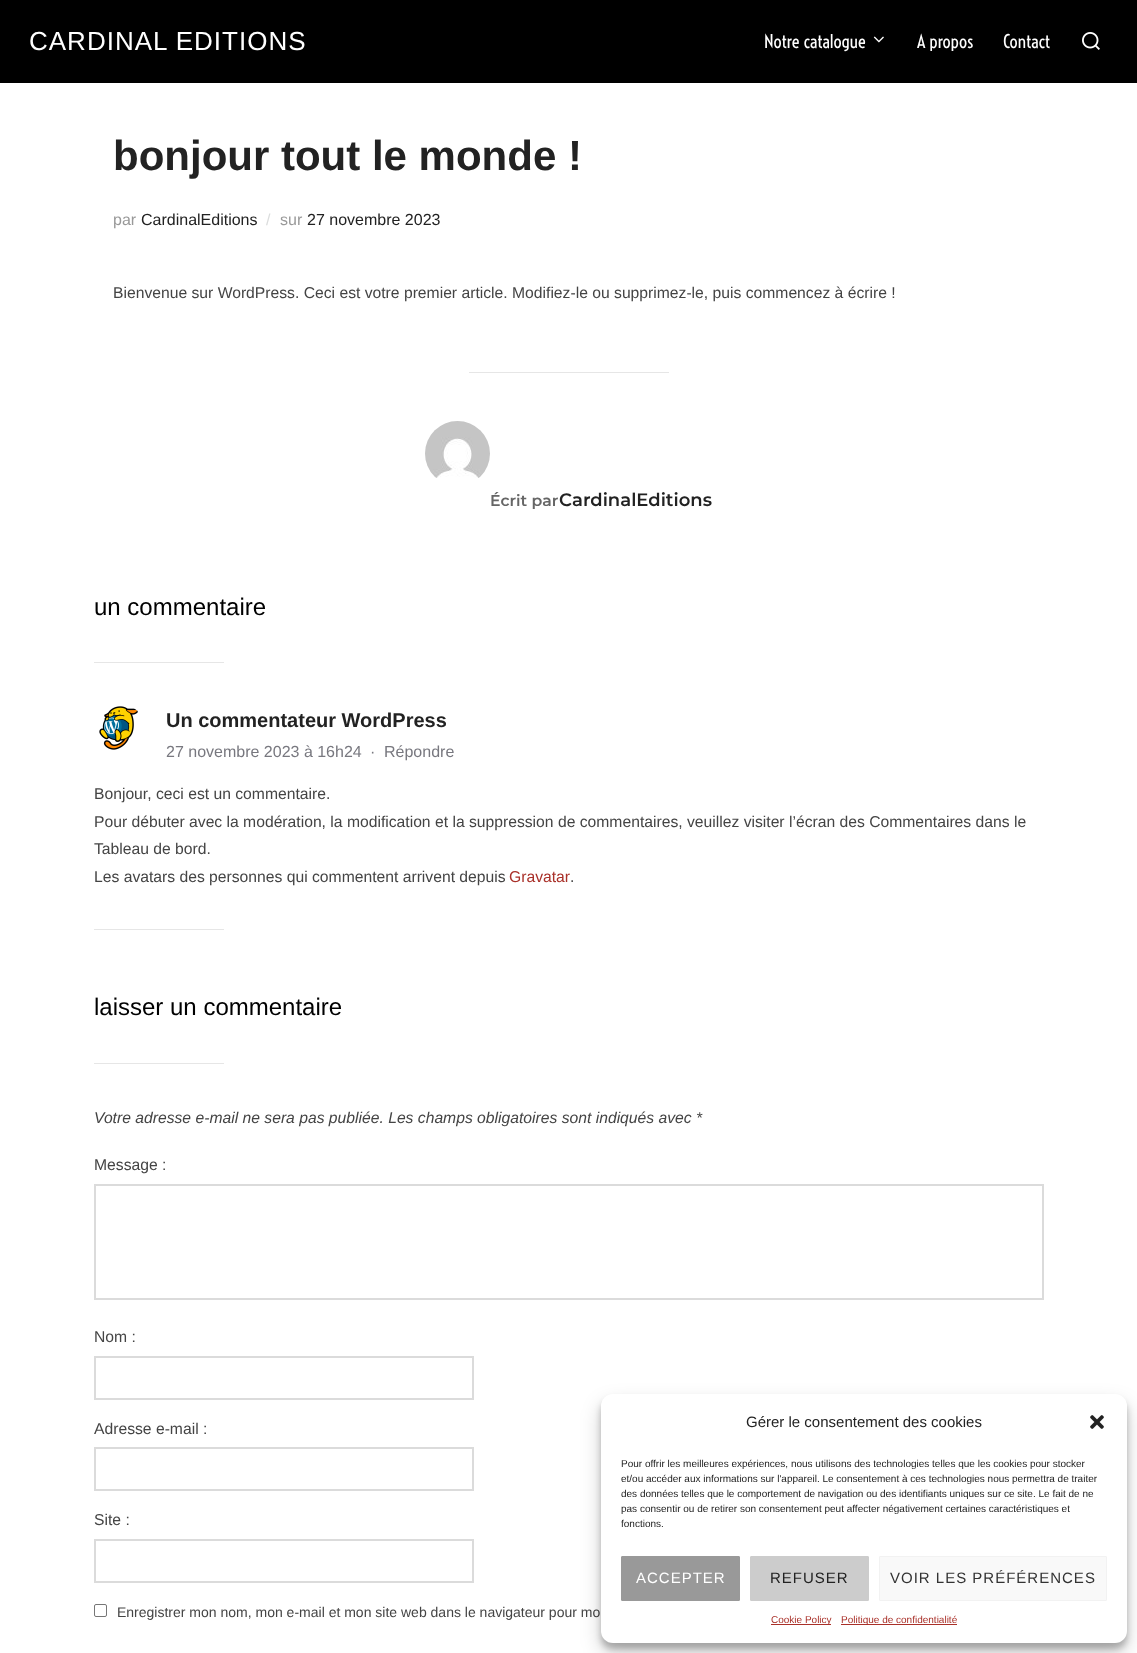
<svg xmlns="http://www.w3.org/2000/svg" width="1137" height="1653" viewBox="0 0 1137 1653">
  <style>
    .t1 { font: 26px Liberation Sans; letter-spacing: 1px; fill: #fff; }
    .t2 { font: 18px Voltaire; fill: #fff; }
    .t3 { font: bold 42px Liberation Sans; fill: #222; }
    .t4 { font: 16px Liberation Sans; fill: #999; }
    .t5 { font: 16px Liberation Sans; fill: #222; }
    .t6 { font: 16px Liberation Sans; fill: #dbdddd; }
    .t7 { font: 15.7px Liberation Sans; fill: #444; }
    .t8 { font: 600 15.7px Montserrat; fill: #666; }
    .t9 { font: 600 18px Montserrat; fill: #222; }
    .t10 { font: 24px Liberation Sans; fill: #000; }
    .t11 { font: bold 20px Liberation Sans; fill: #222; }
    .t12 { font: 16px Liberation Sans; fill: #78787f; }
    .t13 { font: 15.7px Liberation Sans; fill: #a93029; }
    .t14 { font: italic 15.7px Liberation Sans; fill: #444; }
    .t15 { font: 14px Liberation Sans; fill: #444; }
    .t16 { font: 15px Liberation Sans; fill: #222; }
    .t17 { font: 10px Liberation Sans; fill: #222; }
    .t18 { font: 15px Liberation Sans; letter-spacing: 1px; fill: #fff; }
    .t19 { font: 15px Liberation Sans; letter-spacing: 1px; fill: #222; }
    .t20 { font: 15px Liberation Sans; letter-spacing: 1px; fill: #333; }
    .t21 { font: 10px Liberation Sans; fill: #a93029; }
  </style>
  <rect width="100%" height="100%" fill="#fff"/>
  <rect x="0" y="0" width="1137" height="83" fill="#000"/>
  <text x="29" y="50" class="t1">CARDINAL EDITIONS</text>
  <text x="764" y="48" class="t2">Notre catalogue</text>
  <image x="873" y="36" width="11" height="7" href="images/1.png"/>
  <text x="917" y="48" class="t2">A propos</text>
  <text x="1003" y="48" class="t2">Contact</text>
  <image x="1082" y="32" width="18" height="18" href="images/2.png"/>
  <text x="113" y="170" class="t3">bonjour tout le monde !</text>
  <text x="113" y="225" class="t4">par</text>
  <text x="141" y="225" class="t5">CardinalEditions</text>
  <text x="266" y="225" class="t6">/</text>
  <text x="280" y="225" class="t4">sur</text>
  <text x="307" y="225" class="t5">27 novembre 2023</text>
  <text x="113" y="298" class="t7">Bienvenue sur WordPress. Ceci est votre premier article. Modifiez-le ou supprimez-le, puis commencez à écrire !</text>
  <rect x="469" y="372" width="200" height="1" fill="#e6e6e6"/>
  <image x="425" y="421" width="65" height="57" href="images/3.png"/>
  <text x="490" y="506" class="t8">Écrit par</text>
  <text x="559" y="506" class="t9">CardinalEditions</text>
  <text x="94" y="615" class="t10">un commentaire</text>
  <rect x="94" y="662" width="130" height="1" fill="#e6e6e6"/>
  <image x="99" y="706" width="39" height="44" href="images/4.png"/>
  <text x="166" y="727" class="t11">Un commentateur WordPress</text>
  <text x="166" y="757" class="t12">27 novembre 2023 à 16h24</text>
  <text x="370" y="757" class="t12">·</text>
  <text x="384" y="757" class="t12">Répondre</text>
  <text x="94" y="799" class="t7">Bonjour, ceci est un commentaire.</text>
  <text x="94" y="827" class="t7">Pour débuter avec la modération, la modification et la suppression de commentaires, veuillez visiter l’écran des Commentaires dans le</text>
  <text x="94" y="854" class="t7">Tableau de bord.</text>
  <text x="94" y="882" class="t7">Les avatars des personnes qui commentent arrivent depuis</text>
  <text x="509" y="882" class="t13">Gravatar</text>
  <text x="570" y="882" class="t7">.</text>
  <rect x="94" y="929" width="130" height="1" fill="#e6e6e6"/>
  <text x="94" y="1015" class="t10">laisser un commentaire</text>
  <rect x="94" y="1063" width="130" height="1" fill="#e6e6e6"/>
  <text x="94" y="1123" class="t14">Votre adresse e-mail ne sera pas publiée. Les champs obligatoires sont indiqués avec *</text>
  <text x="94" y="1170" class="t7">Message :</text>
  <rect x="95" y="1185" width="948" height="114" fill="none" stroke="#dbdbdb" stroke-width="2"/>
  <text x="94" y="1342" class="t7">Nom :</text>
  <rect x="95" y="1357" width="378" height="42" fill="none" stroke="#dbdbdb" stroke-width="2"/>
  <text x="94" y="1434" class="t7">Adresse e-mail :</text>
  <rect x="95" y="1448" width="378" height="42" fill="none" stroke="#dbdbdb" stroke-width="2"/>
  <text x="94" y="1525" class="t7">Site :</text>
  <rect x="95" y="1540" width="378" height="42" fill="none" stroke="#dbdbdb" stroke-width="2"/>
  <rect x="94.5" y="1604.5" width="12" height="12" rx="1.5" fill="none" stroke="#767676"/>
  <text x="117" y="1617" class="t15">Enregistrer mon nom, mon e-mail et mon site web dans le navigateur pour mo</text>
  <rect x="601" y="1400" width="526" height="249" rx="12" fill="#0000003b" filter="blur(3px)"/>
  <rect x="601" y="1404" width="526" height="249" rx="12" fill="#00000030" filter="blur(10px)"/>
  <rect x="601" y="1394" width="526" height="249" rx="12" fill="#fff"/>
  <text x="746" y="1427" class="t16">Gérer le consentement des cookies</text>
  <image x="1090" y="1415" width="14" height="14" href="images/5.png"/>
  <text x="621" y="1467" class="t17">Pour offrir les meilleures expériences, nous utilisons des technologies telles que les cookies pour stocker</text>
  <text x="621" y="1482" class="t17">et/ou accéder aux informations sur l'appareil. Le consentement à ces technologies nous permettra de traiter</text>
  <text x="621" y="1497" class="t17">des données telles que le comportement de navigation ou des identifiants uniques sur ce site. Le fait de ne</text>
  <text x="621" y="1512" class="t17">pas consentir ou de retirer son consentement peut affecter négativement certaines caractéristiques et</text>
  <text x="621" y="1527" class="t17">fonctions.</text>
  <rect x="621.5" y="1556.5" width="118" height="44" rx="0.5" fill="#999" stroke="#999"/>
  <text x="636" y="1583" class="t18">ACCEPTER</text>
  <rect x="750.5" y="1556.5" width="118" height="44" rx="0.5" fill="#ccc" stroke="#ccc"/>
  <text x="770" y="1583" class="t19">REFUSER</text>
  <rect x="879.5" y="1556.5" width="227" height="44" rx="0.5" fill="#f9f9f9" stroke="#f2f2f2"/>
  <text x="890" y="1583" class="t20">VOIR LES PRÉFÉRENCES</text>
  <rect x="771" y="1624" width="60" height="1" fill="#a93029"/>
  <text x="771" y="1623" class="t21">Cookie Policy</text>
  <rect x="841" y="1624" width="116" height="1" fill="#a93029"/>
  <text x="841" y="1623" class="t21">Politique de confidentialité</text>
</svg>
